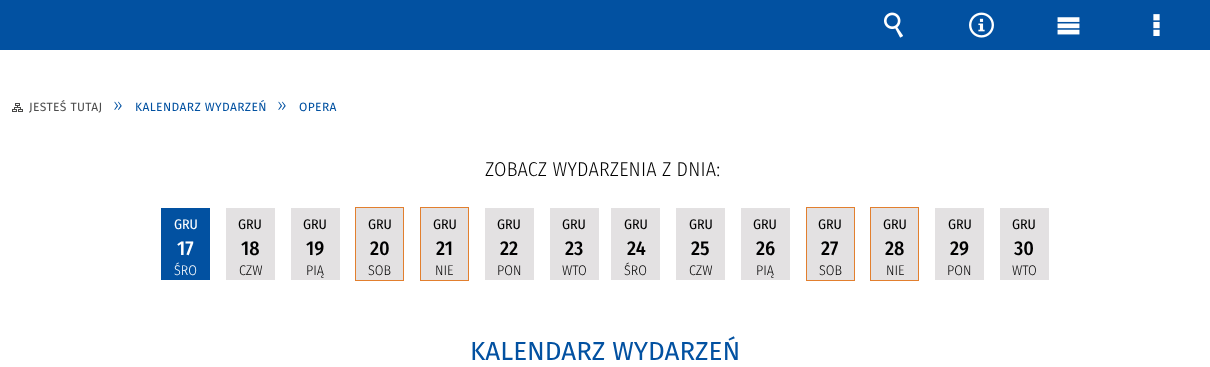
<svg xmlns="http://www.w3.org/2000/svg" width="1210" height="367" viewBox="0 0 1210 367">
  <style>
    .t1 { font: 12px Fira Sans; letter-spacing: 0.4px; fill: #4c4c4c; }
    .t2 { font: 300 18px Fira Sans; letter-spacing: 0.4px; fill: #0251a1; }
    .t3 { font: 12px Fira Sans; letter-spacing: 0.4px; fill: #0251a1; }
    .t4 { font: 300 20px Fira Sans Condensed; letter-spacing: 0.2px; fill: #000; }
    .t5 { font: 14px Fira Sans Condensed; fill: #fff; }
    .t6 { font: 500 20px Fira Sans Condensed; fill: #fff; }
    .t7 { font: 300 14px Fira Sans Condensed; fill: #fff; }
    .t8 { font: 14px Fira Sans Condensed; fill: #000; }
    .t9 { font: 500 20px Fira Sans Condensed; fill: #000; }
    .t10 { font: 300 14px Fira Sans Condensed; fill: #000; }
    .t11 { font: 26px Fira Sans; fill: #0251a1; }
  </style>
  <rect width="100%" height="100%" fill="#fff"/>
  <rect x="0" y="0" width="1210" height="50" fill="#0251a1"/>
  <image x="884" y="12" width="19" height="26" href="images/1.png"/>
  <image x="969" y="12" width="25" height="26" href="images/2.png"/>
  <image x="1057" y="17" width="23" height="18" href="images/3.png"/>
  <image x="1153" y="14" width="7" height="22" href="images/4.png"/>
  <image x="12" y="103" width="11" height="9" href="images/5.png"/>
  <text x="29" y="111" class="t1">JESTEŚ TUTAJ</text>
  <text x="113" y="111" class="t2">»</text>
  <text x="135" y="111" class="t3">KALENDARZ WYDARZEŃ</text>
  <text x="277" y="111" class="t2">»</text>
  <text x="299" y="111" class="t3">OPERA</text>
  <text x="485" y="176" class="t4">ZOBACZ WYDARZENIA Z DNIA:</text>
  <rect x="161" y="208" width="49" height="72" fill="#0251a1"/>
  <text x="174" y="229" class="t5">GRU</text>
  <text x="177" y="255" class="t6">17</text>
  <text x="174" y="275" class="t7">ŚRO</text>
  <rect x="226" y="208" width="49" height="72" fill="#e3e1e2"/>
  <text x="238" y="229" class="t8">GRU</text>
  <text x="241" y="255" class="t9">18</text>
  <text x="239" y="275" class="t10">CZW</text>
  <rect x="291" y="208" width="49" height="72" fill="#e3e1e2"/>
  <text x="303" y="229" class="t8">GRU</text>
  <text x="306" y="255" class="t9">19</text>
  <text x="306" y="275" class="t10">PIĄ</text>
  <rect x="355.5" y="207.5" width="48" height="73" fill="#e3e1e2" stroke="#e27f2e"/>
  <text x="368" y="229" class="t8">GRU</text>
  <text x="370" y="255" class="t9">20</text>
  <text x="368" y="275" class="t10">SOB</text>
  <rect x="420.5" y="207.5" width="48" height="73" fill="#e3e1e2" stroke="#e27f2e"/>
  <text x="433" y="229" class="t8">GRU</text>
  <text x="436" y="255" class="t9">21</text>
  <text x="435" y="275" class="t10">NIE</text>
  <rect x="485" y="208" width="49" height="72" fill="#e3e1e2"/>
  <text x="497" y="229" class="t8">GRU</text>
  <text x="500" y="255" class="t9">22</text>
  <text x="497" y="275" class="t10">PON</text>
  <rect x="550" y="208" width="49" height="72" fill="#e3e1e2"/>
  <text x="562" y="229" class="t8">GRU</text>
  <text x="565" y="255" class="t9">23</text>
  <text x="562" y="275" class="t10">WTO</text>
  <rect x="611" y="208" width="49" height="72" fill="#e3e1e2"/>
  <text x="624" y="229" class="t8">GRU</text>
  <text x="627" y="255" class="t9">24</text>
  <text x="624" y="275" class="t10">ŚRO</text>
  <rect x="676" y="208" width="49" height="72" fill="#e3e1e2"/>
  <text x="689" y="229" class="t8">GRU</text>
  <text x="691" y="255" class="t9">25</text>
  <text x="689" y="275" class="t10">CZW</text>
  <rect x="741" y="208" width="49" height="72" fill="#e3e1e2"/>
  <text x="753" y="229" class="t8">GRU</text>
  <text x="756" y="255" class="t9">26</text>
  <text x="756" y="275" class="t10">PIĄ</text>
  <rect x="806.5" y="207.5" width="48" height="73" fill="#e3e1e2" stroke="#e27f2e"/>
  <text x="818" y="229" class="t8">GRU</text>
  <text x="821" y="255" class="t9">27</text>
  <text x="819" y="275" class="t10">SOB</text>
  <rect x="870.5" y="207.5" width="48" height="73" fill="#e3e1e2" stroke="#e27f2e"/>
  <text x="883" y="229" class="t8">GRU</text>
  <text x="885" y="255" class="t9">28</text>
  <text x="886" y="275" class="t10">NIE</text>
  <rect x="935" y="208" width="49" height="72" fill="#e3e1e2"/>
  <text x="948" y="229" class="t8">GRU</text>
  <text x="950" y="255" class="t9">29</text>
  <text x="947" y="275" class="t10">PON</text>
  <rect x="1000" y="208" width="49" height="72" fill="#e3e1e2"/>
  <text x="1012" y="229" class="t8">GRU</text>
  <text x="1014" y="255" class="t9">30</text>
  <text x="1012" y="275" class="t10">WTO</text>
  <text x="470" y="360" class="t11">KALENDARZ WYDARZEŃ</text>
</svg>
